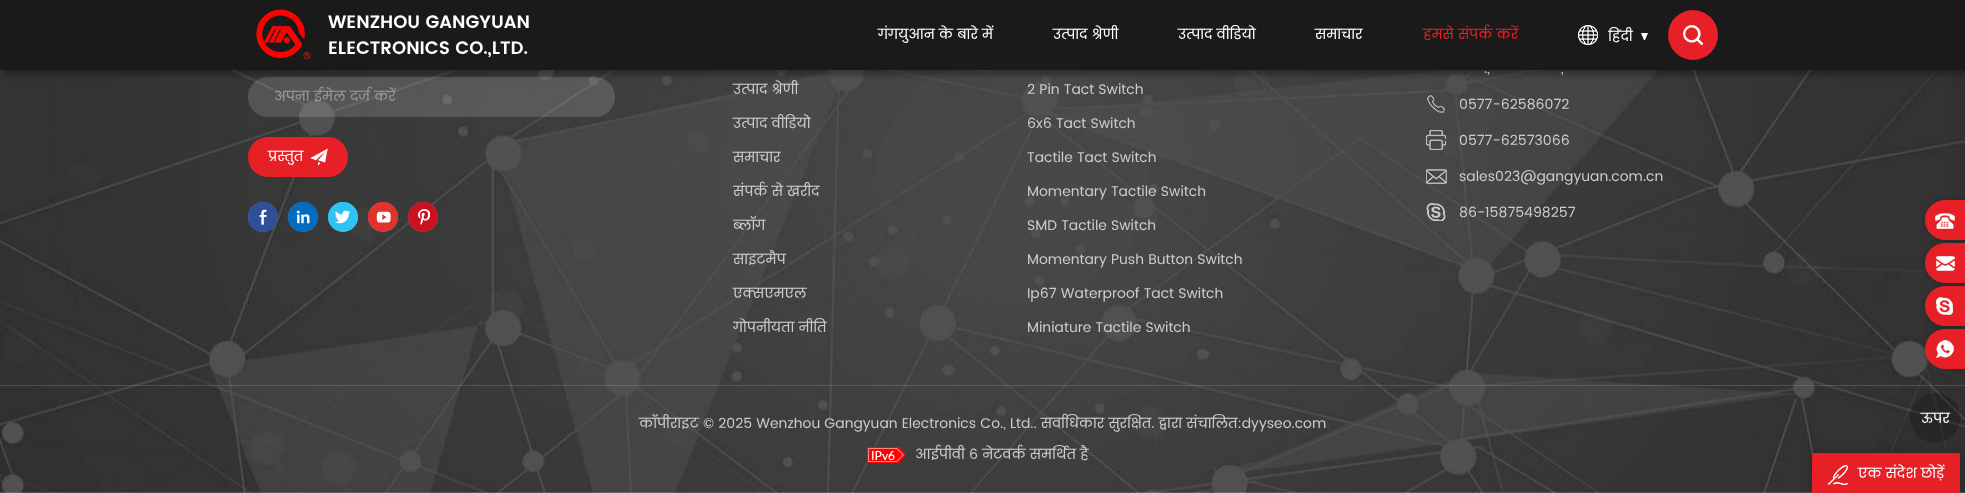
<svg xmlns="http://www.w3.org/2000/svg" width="1965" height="493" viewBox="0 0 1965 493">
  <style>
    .t1 { font: 600 18px Poppins; fill: #fff; }
    .t2 { font: 14px Poppins; fill: #fff; }
    .t3 { font: 14px Poppins; fill: #e72027; }
    .t4 { font: 14px Poppins; fill: #999; }
    .t5 { font: 14px Poppins; fill: #ccc; }
  </style>
  <defs>
    <clipPath id="clip1"><rect x="1608" y="15" width="40" height="40"/></clipPath>
    <clipPath id="clip2"><rect x="733" y="179" width="235" height="26"/></clipPath>
    <clipPath id="clip3"><rect x="733" y="213" width="235" height="26"/></clipPath>
    <clipPath id="clip4"><rect x="733" y="315" width="235" height="26"/></clipPath>
  </defs>
  <rect width="100%" height="100%" fill="#fff"/>
  <image x="0" y="70" width="1965" height="423" href="images/5.png"/>
  <rect x="248" y="77" width="367" height="40" rx="20" fill="#ffffff26"/>
  <rect x="5" y="5" width="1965" height="70" fill="#0000004d" filter="blur(2.5px)"/>
  <rect x="0" y="0" width="1965" height="70" fill="#1a1a1a"/>
  <image x="254" y="9" width="58" height="56" href="images/1.png"/>
  <text x="328" y="28" class="t1">WENZHOU GANGYUAN</text>
  <text x="328" y="54" class="t1">ELECTRONICS CO.,LTD.</text>
  <text x="878" y="39" class="t2">गंगयुआन के बारे में</text>
  <text x="1053" y="39" class="t2">उत्पाद श्रेणी</text>
  <text x="1178" y="39" class="t2">उत्पाद वीडियो</text>
  <text x="1315" y="39" class="t2">समाचार</text>
  <text x="1423" y="39" class="t3">हमसे संपर्क करें</text>
  <image x="1578" y="25" width="20" height="20" href="images/2.png"/>
  <g clip-path="url(#clip1)">
    <text x="1608" y="41" class="t2">हिंदी</text>
  </g>
  <image x="1641" y="33" width="7" height="7" href="images/3.png"/>
  <circle cx="1693" cy="35" r="25" fill="#e72027"/>
  <image x="1683" y="25" width="20" height="20" href="images/4.png"/>
  <text x="274" y="101" class="t4">अपना ईमेल दर्ज करें</text>
  <rect x="248" y="137" width="100" height="40" rx="20" fill="#e72027"/>
  <image x="310" y="148" width="18" height="18" href="images/6.png"/>
  <text x="268" y="161" class="t2">प्रस्तुत</text>
  <circle cx="263" cy="217" r="15" fill="#808080"/>
  <image x="248" y="202" width="30" height="30" href="images/7.png"/>
  <circle cx="303" cy="217" r="15" fill="#808080"/>
  <image x="288" y="202" width="30" height="30" href="images/8.png"/>
  <circle cx="343" cy="217" r="15" fill="#808080"/>
  <image x="328" y="202" width="30" height="30" href="images/9.png"/>
  <circle cx="383" cy="217" r="15" fill="#808080"/>
  <image x="368" y="202" width="30" height="30" href="images/10.png"/>
  <circle cx="423" cy="217" r="15" fill="#808080"/>
  <image x="408" y="202" width="30" height="30" href="images/11.png"/>
  <text x="733" y="94" class="t5">उत्पाद श्रेणी</text>
  <text x="733" y="128" class="t5">उत्पाद वीडियो</text>
  <text x="733" y="162" class="t5">समाचार</text>
  <g clip-path="url(#clip2)">
    <text x="733" y="196" class="t5">संपर्क से खरीद</text>
  </g>
  <g clip-path="url(#clip3)">
    <text x="733" y="230" class="t5">ब्लॉग</text>
  </g>
  <text x="733" y="264" class="t5">साइटमैप</text>
  <text x="733" y="298" class="t5">एक्सएमएल</text>
  <g clip-path="url(#clip4)">
    <text x="733" y="332" class="t5">गोपनीयता नीति</text>
  </g>
  <text x="1027" y="94" class="t5">2 Pin Tact Switch</text>
  <text x="1027" y="128" class="t5">6x6 Tact Switch</text>
  <text x="1027" y="162" class="t5">Tactile Tact Switch</text>
  <text x="1027" y="196" class="t5">Momentary Tactile Switch</text>
  <text x="1027" y="230" class="t5">SMD Tactile Switch</text>
  <text x="1027" y="264" class="t5">Momentary Push Button Switch</text>
  <text x="1027" y="298" class="t5">Ip67 Waterproof Tact Switch</text>
  <text x="1027" y="332" class="t5">Miniature Tactile Switch</text>
  <text x="1484" y="73" class="t5">.,</text>
  <text x="1561" y="73" class="t5">,</text>
  <image x="1427" y="95" width="18" height="18" href="images/12.png"/>
  <text x="1459" y="109" class="t5">0577-62586072</text>
  <image x="1426" y="130" width="20" height="20" href="images/13.png"/>
  <text x="1459" y="145" class="t5">0577-62573066</text>
  <image x="1426" y="169" width="21" height="15" href="images/14.png"/>
  <text x="1459" y="181" class="t5">sales023@gangyuan.com.cn</text>
  <image x="1426" y="203" width="20" height="18" href="images/15.png"/>
  <text x="1459" y="217" class="t5">86-15875498257</text>
  <rect x="0" y="385" width="1965" height="1" fill="#ffffff26"/>
  <text x="639" y="428" class="t5">कॉपीराइट © 2025 Wenzhou Gangyuan Electronics Co., Ltd.. सर्वाधिकार सुरक्षित. द्वारा संचालित:dyyseo.com</text>
  <image x="867" y="447" width="39" height="16" href="images/16.png"/>
  <text x="915" y="459" class="t5">आईपीवी 6 नेटवर्क समर्थित है</text>
  <rect x="1925" y="200" width="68" height="40" rx="20" fill="#00000033" filter="blur(2.5px)"/>
  <path d="M1945 200H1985V240H1945C1934 240 1925 231 1925 220C1925 209 1934 200 1945 200Z" fill="#e72027"/>
  <image x="1935" y="213" width="20" height="16" href="images/17.png"/>
  <rect x="1925" y="243" width="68" height="40" rx="20" fill="#00000033" filter="blur(2.5px)"/>
  <path d="M1945 243H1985V283H1945C1934 283 1925 274 1925 263C1925 252 1934 243 1945 243Z" fill="#e72027"/>
  <image x="1936" y="256" width="19" height="15" href="images/18.png"/>
  <rect x="1925" y="286" width="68" height="40" rx="20" fill="#00000033" filter="blur(2.5px)"/>
  <path d="M1945 286H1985V326H1945C1934 326 1925 317 1925 306C1925 295 1934 286 1945 286Z" fill="#e72027"/>
  <image x="1936" y="297" width="17" height="18" href="images/19.png"/>
  <rect x="1925" y="329" width="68" height="40" rx="20" fill="#00000033" filter="blur(2.5px)"/>
  <path d="M1945 329H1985V369H1945C1934 369 1925 360 1925 349C1925 338 1934 329 1945 329Z" fill="#e72027"/>
  <image x="1936" y="340" width="18" height="18" href="images/20.png"/>
  <circle cx="1935" cy="418" r="25" fill="#00000033"/>
  <text x="1921" y="423" class="t2">ऊपर</text>
  <rect x="1812" y="453" width="148" height="40" fill="#00000033" filter="blur(5px)"/>
  <rect x="1812" y="453" width="148" height="40" fill="#e72027"/>
  <image x="1828" y="465" width="20" height="20" href="images/21.png"/>
  <text x="1858" y="478" class="t2">एक संदेश छोड़ें</text>
</svg>
